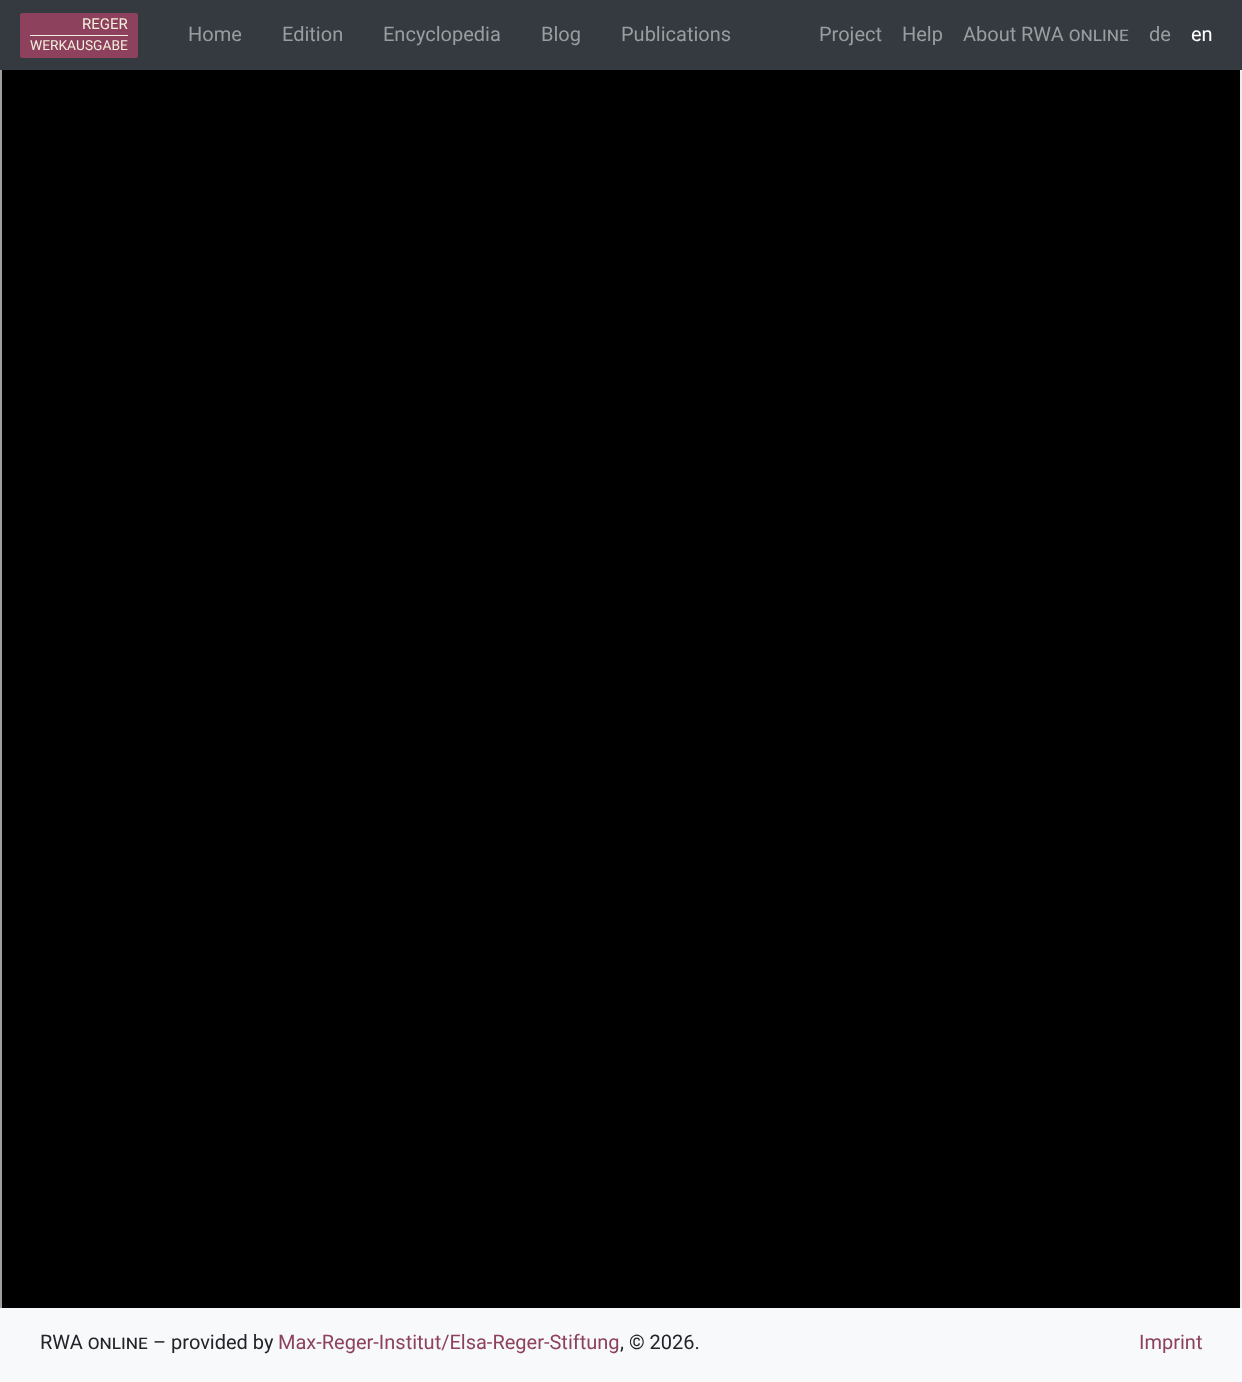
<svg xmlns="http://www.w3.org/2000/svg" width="1242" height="1382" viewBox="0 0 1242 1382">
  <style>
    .t1 { font: 15px Roboto; fill: #f3efdc; }
    .t2 { font: 13.75px Roboto; fill: #f3efdc; }
    .t3 { font: 20px Roboto; fill: #9a9da0; }
    .t4 { font: 20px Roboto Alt; fill: #9a9da0; }
    .t5 { font: 20px Roboto; fill: #fff; }
    .t6 { font: 20px Roboto Alt; fill: #212529; }
    .t7 { font: 20px Roboto; fill: #212529; }
    .t8 { font: 20px Roboto; fill: #8d415d; }
  </style>
  <rect width="100%" height="100%" fill="#fff"/>
  <path d="M0 1310V20L2 22V1308Z" fill="#9f9f9f"/>
  <path d="M1242 20V1310L1240 1308V22Z" fill="#eee"/>
  <rect x="0" y="0" width="1242" height="70" fill="#343a40"/>
  <rect x="20" y="13" width="118" height="45" rx="2.5" fill="#8d415d"/>
  <text x="82" y="29" class="t1">REGER</text>
  <rect x="30" y="35" width="98" height="1" fill="#f3efdc"/>
  <text x="30" y="50" class="t2">WERKAUSGABE</text>
  <text x="188" y="41" class="t3">Home</text>
  <text x="282" y="41" class="t3">Edition</text>
  <text x="383" y="41" class="t3">Encyclopedia</text>
  <text x="541" y="41" class="t3">Blog</text>
  <text x="621" y="41" class="t3">Publications</text>
  <text x="819" y="41" class="t3">Project</text>
  <text x="902" y="41" class="t3">Help</text>
  <text x="963" y="41" class="t3">About</text>
  <text x="1021" y="41" class="t4">RWA online</text>
  <text x="1149" y="41" class="t3">de</text>
  <text x="1191" y="41" class="t5">en</text>
  <rect x="2" y="70" width="1238" height="1238" fill="#000"/>
  <rect x="0" y="1308" width="1242" height="74" fill="#f8f9fa"/>
  <text x="40" y="1349" class="t6">RWA online</text>
  <text x="153" y="1349" class="t7">– provided by</text>
  <text x="278" y="1349" class="t8">Max-Reger-Institut/Elsa-Reger-Stiftung</text>
  <text x="620" y="1349" class="t7">, © 2026.</text>
  <text x="1139" y="1349" class="t8">Imprint</text>
</svg>
